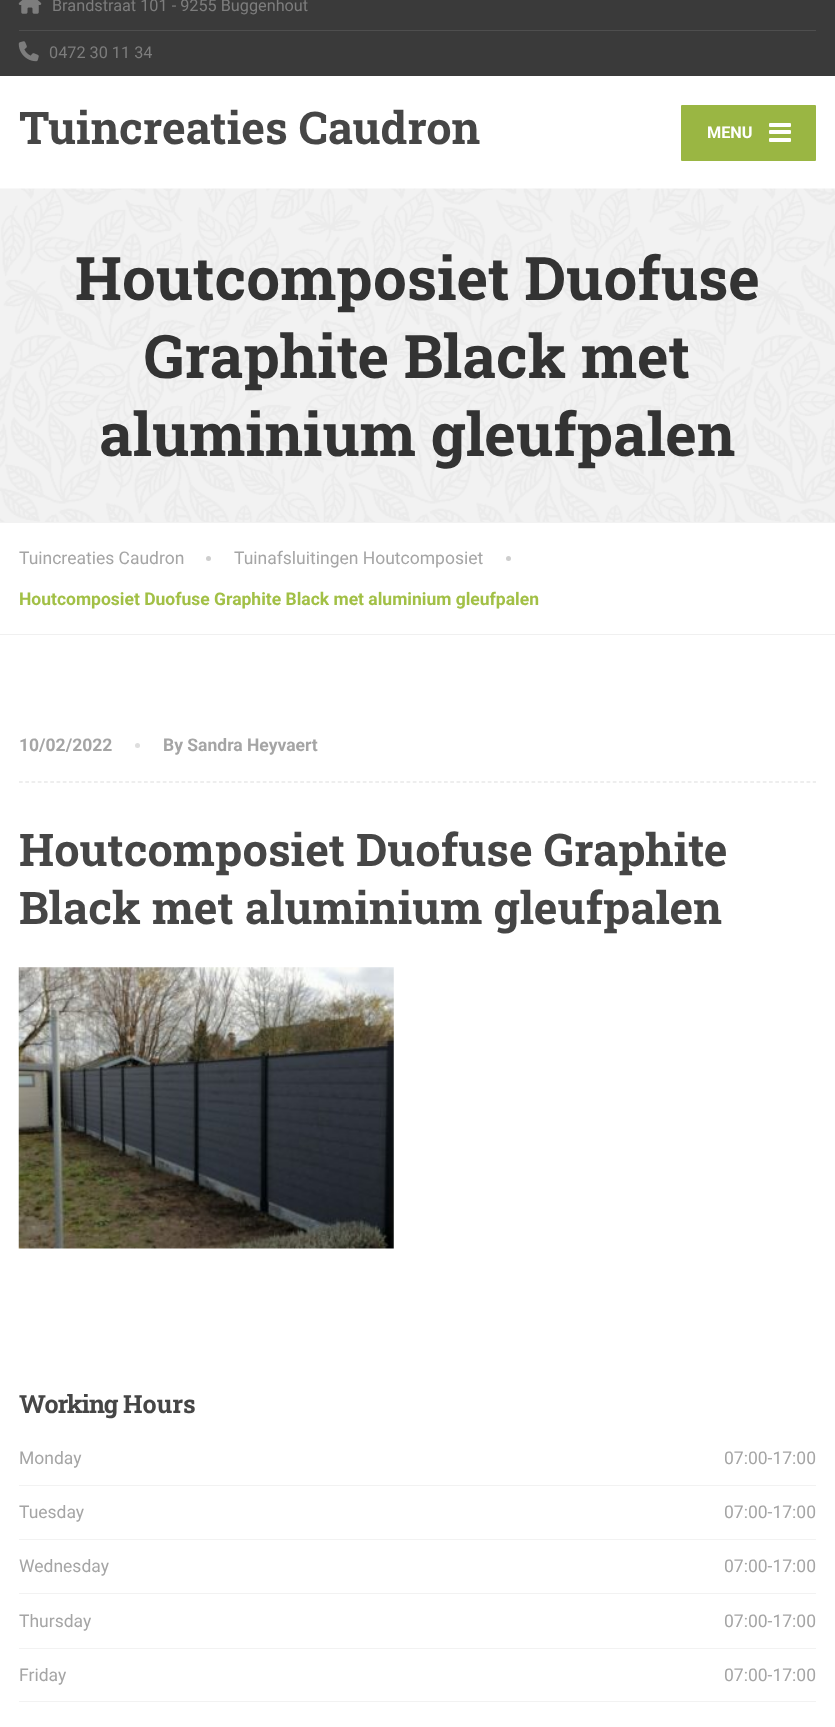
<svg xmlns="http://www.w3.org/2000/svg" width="835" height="1727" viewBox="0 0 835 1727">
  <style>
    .t1 { font: 16.25px Roboto; fill: #7d7d7d; }
    .t2 { font: bold 45px Roboto Slab; fill: #464646; }
    .t3 { font: bold 16.25px Roboto; fill: #fff; }
    .t4 { font: bold 60px Roboto Slab; fill: #333; }
    .t5 { font: 17.5px Roboto; fill: #a5a5a5; }
    .t6 { font: bold 17.5px Roboto; fill: #a2c046; }
    .t7 { font: bold 17.5px Roboto; fill: #a5a5a5; }
    .t8 { font: bold 25px Roboto Slab; letter-spacing: -1px; fill: #464646; }
    .t9 { font: bold 25px Roboto Slab; fill: #464646; }
  </style>
  <rect width="100%" height="100%" fill="#fff"/>
  <rect x="0" y="0" width="835" height="76" fill="#3a3a3a"/>
  <image x="18" y="0" width="24" height="14" href="images/1.png"/>
  <text x="52" y="11" class="t1">Brandstraat 101 - 9255 Buggenhout</text>
  <rect x="19" y="30" width="797" height="1" fill="#4e4e4e"/>
  <image x="18" y="41" width="21" height="21" href="images/2.png"/>
  <text x="49" y="58" class="t1">0472 30 11 34</text>
  <text x="19" y="144" class="t2">Tuincreaties Caudron</text>
  <rect x="681" y="105" width="135" height="56" rx="1" fill="#9ab643"/>
  <text x="707" y="138" class="t3">MENU</text>
  <rect x="769" y="123" width="22" height="4" rx="1" fill="#fff"/>
  <rect x="769" y="130" width="22" height="4" rx="1" fill="#fff"/>
  <rect x="769" y="138" width="22" height="4" rx="1" fill="#fff"/>
  <rect x="0" y="522" width="835" height="1" fill="#f2f2f2"/>
  <image x="0" y="188" width="835" height="334" href="images/3.png"/>
  <text x="75" y="300" class="t4">Houtcomposiet Duofuse</text>
  <text x="144" y="378" class="t4">Graphite Black met</text>
  <text x="99" y="456" class="t4">aluminium gleufpalen</text>
  <rect x="0" y="634" width="835" height="1" fill="#f0f0f0"/>
  <text x="19" y="564" class="t5">Tuincreaties Caudron</text>
  <circle cx="208.5" cy="558.5" r="2.5" fill="#cecece"/>
  <text x="234" y="564" class="t5">Tuinafsluitingen Houtcomposiet</text>
  <circle cx="508.5" cy="558.5" r="2.5" fill="#cecece"/>
  <text x="19" y="605" class="t6">Houtcomposiet Duofuse Graphite Black met aluminium gleufpalen</text>
  <path d="M19 782H816" fill="none" stroke="#dedede" stroke-width="1.2" stroke-dasharray="3.75 2.5"/>
  <text x="19" y="751" class="t7">10/02/2022</text>
  <circle cx="137.5" cy="745.5" r="2.5" fill="#dedede"/>
  <text x="163" y="751" class="t7">By Sandra Heyvaert</text>
  <text x="19" y="866" class="t2">Houtcomposiet Duofuse Graphite</text>
  <text x="19" y="924" class="t2">Black met aluminium gleufpalen</text>
  <image x="18" y="967" width="376" height="282" href="images/4.png"/>
  <text x="19" y="1413" class="t8">Working</text>
  <text x="123" y="1413" class="t9">Hours</text>
  <rect x="19" y="1485" width="797" height="1" fill="#f2f2f2"/>
  <text x="19" y="1464" class="t5">Monday</text>
  <text x="724" y="1464" class="t5">07:00-17:00</text>
  <rect x="19" y="1539" width="797" height="1" fill="#f2f2f2"/>
  <text x="19" y="1518" class="t5">Tuesday</text>
  <text x="724" y="1518" class="t5">07:00-17:00</text>
  <rect x="19" y="1593" width="797" height="1" fill="#f2f2f2"/>
  <text x="19" y="1572" class="t5">Wednesday</text>
  <text x="724" y="1572" class="t5">07:00-17:00</text>
  <rect x="19" y="1648" width="797" height="1" fill="#f2f2f2"/>
  <text x="19" y="1627" class="t5">Thursday</text>
  <text x="724" y="1627" class="t5">07:00-17:00</text>
  <rect x="19" y="1701" width="797" height="1" fill="#f2f2f2"/>
  <text x="19" y="1681" class="t5">Friday</text>
  <text x="724" y="1681" class="t5">07:00-17:00</text>
</svg>
